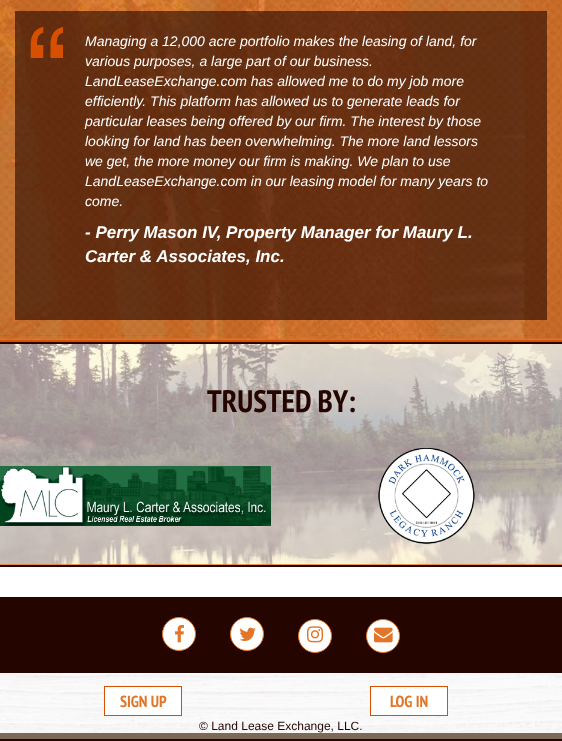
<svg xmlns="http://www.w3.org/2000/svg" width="562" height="741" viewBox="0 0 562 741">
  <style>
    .t1 { font: italic 14px Liberation Sans; fill: #fff; }
    .t2 { font: italic bold 17px Liberation Sans; fill: #fff; }
    .t3 { font: bold 31px PT Sans Narrow; fill: #240500; }
    .t4 { font: bold 16px PT Sans Narrow; fill: #e17628; }
    .t5 { font: 12px Liberation Sans; fill: #240500; }
  </style>
  <rect width="100%" height="100%" fill="#fff"/>
  <image x="0" y="0" width="562" height="340" href="images/1.png"/>
  <rect x="0" y="340" width="562" height="2" fill="#d75000"/>
  <rect x="15" y="11" width="532" height="309" fill="#24050099"/>
  <image x="30" y="26" width="33" height="32" href="images/2.png"/>
  <text x="85" y="46" class="t1">Managing a 12,000 acre portfolio makes the leasing of land, for</text>
  <text x="85" y="66" class="t1">various purposes, a large part of our business.</text>
  <text x="85" y="86" class="t1">LandLeaseExchange.com has allowed me to do my job more</text>
  <text x="85" y="106" class="t1">efficiently. This platform has allowed us to generate leads for</text>
  <text x="85" y="126" class="t1">particular leases being offered by our firm. The interest by those</text>
  <text x="85" y="146" class="t1">looking for land has been overwhelming. The more land lessors</text>
  <text x="85" y="166" class="t1">we get, the more money our firm is making. We plan to use</text>
  <text x="85" y="186" class="t1">LandLeaseExchange.com in our leasing model for many years to</text>
  <text x="85" y="206" class="t1">come.</text>
  <text x="85" y="238" class="t2">- Perry Mason IV, Property Manager for Maury L.</text>
  <text x="85" y="262" class="t2">Carter &amp; Associates, Inc.</text>
  <image x="0" y="344" width="562" height="221" href="images/3.png"/>
  <rect x="0" y="342" width="562" height="2" fill="#240500"/>
  <rect x="0" y="565" width="562" height="2" fill="#240500"/>
  <text x="207" y="412" class="t3">TRUSTED BY:</text>
  <image x="0" y="466" width="271" height="60" href="images/4.png"/>
  <image x="378" y="448" width="97" height="96" href="images/5.png"/>
  <rect x="0" y="597" width="562" height="76" fill="#240500"/>
  <circle cx="179" cy="634" r="16.5" fill="#fff" stroke="#e17628"/>
  <image x="175" y="625" width="9" height="18" href="images/6.png"/>
  <circle cx="247" cy="634" r="16.5" fill="#fff" stroke="#e17628"/>
  <image x="239" y="627" width="17" height="14" href="images/7.png"/>
  <circle cx="315" cy="636" r="16.5" fill="#fff" stroke="#e17628"/>
  <image x="307" y="626" width="16" height="17" href="images/8.png"/>
  <circle cx="383" cy="636" r="16.5" fill="#fff" stroke="#e17628"/>
  <image x="374" y="627" width="19" height="16" href="images/9.png"/>
  <image x="0" y="673" width="562" height="60" href="images/10.png"/>
  <rect x="104.5" y="686.5" width="77" height="29" fill="#fff" stroke="#d75000"/>
  <text x="120" y="707" class="t4">SIGN UP</text>
  <rect x="370.5" y="686.5" width="77" height="29" fill="#fff" stroke="#d75000"/>
  <text x="390" y="707" class="t4">LOG IN</text>
  <rect x="0" y="733" width="562" height="6" fill="#7d6957"/>
  <rect x="0" y="739" width="562" height="2" fill="#240500"/>
  <text x="199" y="730" class="t5">© Land Lease Exchange, LLC.</text>
</svg>
